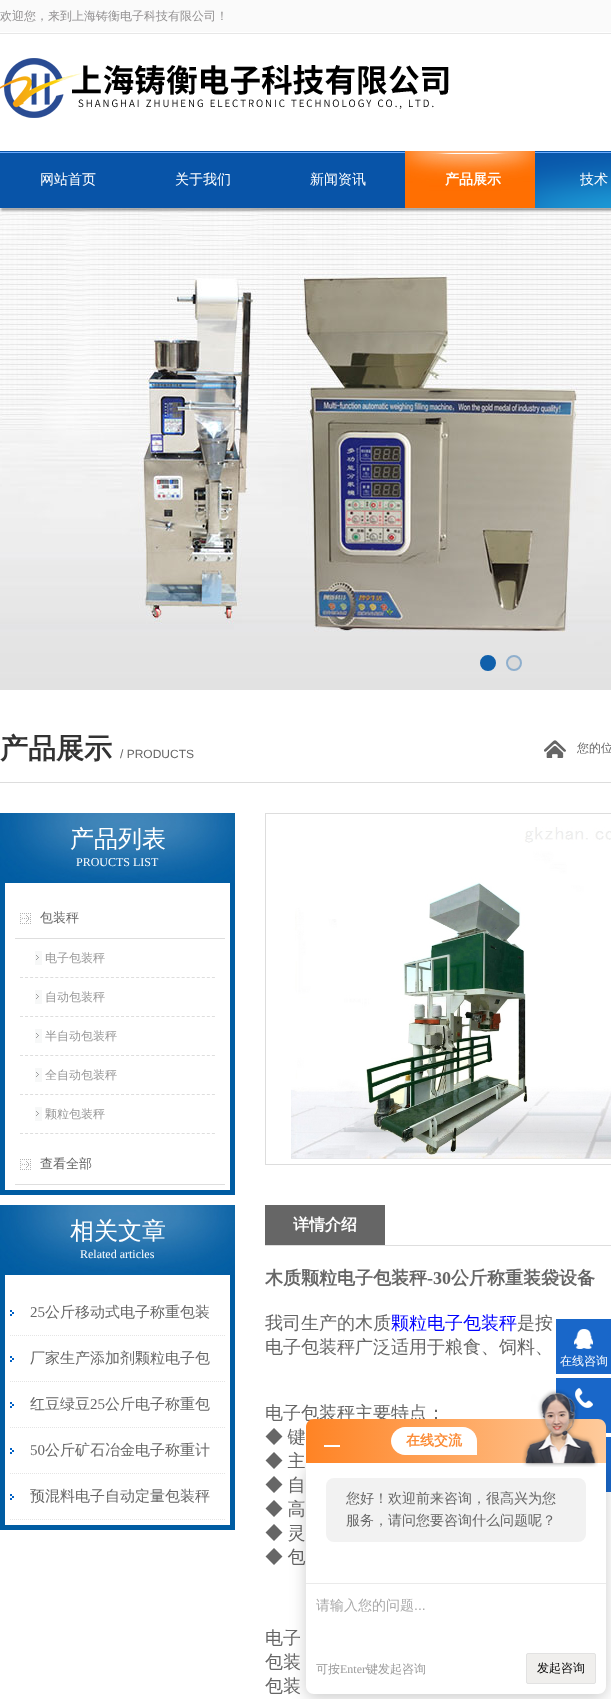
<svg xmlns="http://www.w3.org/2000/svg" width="611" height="1699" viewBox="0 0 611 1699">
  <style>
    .t1 { font: 500 12px WenQuanYi Zen Hei; fill: #929091; }
    .t2 { font: 500 14px WenQuanYi Zen Hei; fill: #fff; }
    .t3 { font: bold 14px WenQuanYi Zen Hei; fill: #fff; }
    .t4 { font: bold 28px WenQuanYi Zen Hei; fill: #333; }
    .t5 { font: 12px Liberation Sans; fill: #666; }
    .t6 { font: 500 12px WenQuanYi Zen Hei; fill: #666; }
    .t7 { font: 500 24px WenQuanYi Zen Hei; fill: #fff; }
    .t8 { font: 12px Liberation Serif; fill: #fff; }
    .t9 { font: 500 13px WenQuanYi Zen Hei; fill: #666; }
    .t10 { font: 500 12px WenQuanYi Zen Hei; fill: #999; }
    .t11 { font: 15px Liberation Serif; fill: #666; }
    .t12 { font: 500 15px WenQuanYi Zen Hei; fill: #666; }
    .t13 { font: bold 16px WenQuanYi Zen Hei; fill: #fff; }
    .t14 { font: bold 18px WenQuanYi Zen Hei; fill: #666; }
    .t15 { font: bold 18px Liberation Serif; fill: #666; }
    .t16 { font: 500 18px WenQuanYi Zen Hei; fill: #666; }
    .t17 { font: 500 18px WenQuanYi Zen Hei; fill: #00f; }
    .t18 { font: 500 12px WenQuanYi Zen Hei; fill: #fff; }
    .t19 { font: bold 14px WenQuanYi Zen Hei; fill: #fb8b36; }
    .t20 { font: 500 14px WenQuanYi Zen Hei; fill: #666; }
    .t21 { font: 500 14px WenQuanYi Zen Hei; fill: #aaa; }
    .t22 { font: 14px Liberation Sans; fill: #aaa; }
    .t23 { font: 12px Liberation Serif; fill: #999; }
    .t24 { font: 500 12px WenQuanYi Zen Hei; fill: #000; }
  </style>
  <defs>
    <linearGradient id="g1" gradientUnits="userSpaceOnUse" x1="306" y1="1441" x2="606" y2="1441"><stop offset="0" stop-color="#ff8324"/><stop offset="1" stop-color="#fecb9c"/></linearGradient>
  </defs>
  <rect width="100%" height="100%" fill="#fff"/>
  <image x="0" y="0" width="611" height="34" href="images/1.png"/>
  <text x="0" y="20" class="t1">欢迎您，来到上海铸衡电子科技有限公司！</text>
  <image x="0" y="58" width="449" height="60" href="images/2.png"/>
  <image x="0" y="208" width="611" height="482" href="images/5.png"/>
  <rect x="1" y="156" width="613" height="55" fill="#0000004d" filter="blur(1px)"/>
  <image x="0" y="151" width="611" height="57" href="images/3.png"/>
  <text x="40" y="184" class="t2">网站首页</text>
  <text x="175" y="184" class="t2">关于我们</text>
  <text x="310" y="184" class="t2">新闻资讯</text>
  <image x="405" y="151" width="130" height="57" href="images/4.png"/>
  <text x="445" y="184" class="t3">产品展示</text>
  <text x="580" y="184" class="t2">技术</text>
  <circle cx="488" cy="663" r="7" fill="#1060ab" stroke="#1060ab" stroke-width="2"/>
  <circle cx="514" cy="663" r="7" fill="#dadada" stroke="#8fafcd" stroke-width="2"/>
  <rect x="0" y="782" width="611" height="1" fill="#ddd"/>
  <text x="0" y="758" class="t4">产品展示</text>
  <text x="120" y="758" class="t5">/ PRODUCTS</text>
  <image x="544" y="740" width="22" height="18" href="images/6.png"/>
  <text x="577" y="752" class="t6">您的位</text>
  <image x="0" y="813" width="235" height="70" href="images/7.png"/>
  <text x="70" y="847" class="t7">产品列表</text>
  <text x="76" y="866" class="t8">PROUCTS LIST</text>
  <rect x="230" y="883" width="5" height="312" fill="#005ca2"/>
  <rect x="0" y="1190" width="235" height="5" fill="#005ca2"/>
  <rect x="0" y="883" width="5" height="312" fill="#005ca2"/>
  <image x="20" y="913" width="11" height="11" href="images/8.png"/>
  <rect x="15" y="938" width="210" height="1" fill="#dedede"/>
  <text x="40" y="922" class="t9">包装秤</text>
  <path d="M20 977.5H215" fill="none" stroke="#dedede" stroke-dasharray="3 2.05"/>
  <image x="35" y="951" width="7" height="14" href="images/9.png"/>
  <text x="45" y="962" class="t10">电子包装秤</text>
  <path d="M20 1016.5H215" fill="none" stroke="#dedede" stroke-dasharray="3 2.05"/>
  <image x="35" y="990" width="7" height="14" href="images/9.png"/>
  <text x="45" y="1001" class="t10">自动包装秤</text>
  <path d="M20 1055.5H215" fill="none" stroke="#dedede" stroke-dasharray="3 2.05"/>
  <image x="35" y="1029" width="7" height="14" href="images/9.png"/>
  <text x="45" y="1040" class="t10">半自动包装秤</text>
  <path d="M20 1094.5H215" fill="none" stroke="#dedede" stroke-dasharray="3 2.05"/>
  <image x="35" y="1068" width="7" height="14" href="images/9.png"/>
  <text x="45" y="1079" class="t10">全自动包装秤</text>
  <path d="M20 1133.5H215" fill="none" stroke="#dedede" stroke-dasharray="3 2.05"/>
  <image x="35" y="1107" width="7" height="14" href="images/9.png"/>
  <text x="45" y="1118" class="t10">颗粒包装秤</text>
  <image x="20" y="1159" width="11" height="11" href="images/8.png"/>
  <rect x="15" y="1184" width="210" height="1" fill="#dedede"/>
  <text x="40" y="1168" class="t9">查看全部</text>
  <image x="0" y="1205" width="235" height="70" href="images/7.png"/>
  <text x="70" y="1239" class="t7">相关文章</text>
  <text x="80" y="1258" class="t8">Related articles</text>
  <rect x="230" y="1275" width="5" height="255" fill="#005ca2"/>
  <rect x="0" y="1525" width="235" height="5" fill="#005ca2"/>
  <rect x="0" y="1275" width="5" height="255" fill="#005ca2"/>
  <image x="10" y="1310" width="4" height="6" href="images/10.png"/>
  <path d="M10 1335.5H225" fill="none" stroke="#e5e5e5" stroke-dasharray="1 1"/>
  <text x="30" y="1317" class="t11">25</text>
  <text x="45" y="1317" class="t12">公斤移动式电子称重包装</text>
  <image x="10" y="1356" width="4" height="6" href="images/10.png"/>
  <path d="M10 1381.5H225" fill="none" stroke="#e5e5e5" stroke-dasharray="1 1"/>
  <text x="30" y="1363" class="t12">厂家生产添加剂颗粒电子包</text>
  <image x="10" y="1402" width="4" height="6" href="images/10.png"/>
  <path d="M10 1427.5H225" fill="none" stroke="#e5e5e5" stroke-dasharray="1 1"/>
  <text x="30" y="1409" class="t12">红豆绿豆</text>
  <text x="90" y="1409" class="t11">25</text>
  <text x="105" y="1409" class="t12">公斤电子称重包</text>
  <image x="10" y="1448" width="4" height="6" href="images/10.png"/>
  <path d="M10 1473.5H225" fill="none" stroke="#e5e5e5" stroke-dasharray="1 1"/>
  <text x="30" y="1455" class="t11">50</text>
  <text x="45" y="1455" class="t12">公斤矿石冶金电子称重计</text>
  <image x="10" y="1494" width="4" height="6" href="images/10.png"/>
  <path d="M10 1519.5H225" fill="none" stroke="#e5e5e5" stroke-dasharray="1 1"/>
  <text x="30" y="1501" class="t12">预混料电子自动定量包装秤</text>
  <rect x="265.5" y="813.5" width="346" height="351" fill="none" stroke="#ddd"/>
  <image x="291" y="827" width="320" height="332" href="images/11.png"/>
  <rect x="265" y="1245" width="346" height="1" fill="#dedede"/>
  <rect x="265" y="1205" width="120" height="40" fill="#666"/>
  <text x="293" y="1230" class="t13">详情介绍</text>
  <text x="265" y="1284" class="t14">木质颗粒电子包装秤</text>
  <text x="427" y="1284" class="t15">-30</text>
  <text x="451" y="1284" class="t14">公斤称重装袋设备</text>
  <text x="265" y="1329" class="t16">我司生产的木质</text>
  <text x="391" y="1329" class="t17">颗粒电子包装秤</text>
  <text x="517" y="1329" class="t16">是按</text>
  <text x="265" y="1353" class="t16">电子包装秤广泛适用于粮食、饲料、</text>
  <text x="265" y="1419" class="t16">电子包装秤主要特点：</text>
  <text x="265" y="1443" word-spacing="-1" class="t16">◆ 键</text>
  <text x="265" y="1467" word-spacing="-1" class="t16">◆ 主</text>
  <text x="265" y="1491" word-spacing="-1" class="t16">◆ 自</text>
  <text x="265" y="1515" word-spacing="-1" class="t16">◆ 高</text>
  <text x="265" y="1539" word-spacing="-1" class="t16">◆ 灵</text>
  <text x="265" y="1563" word-spacing="-1" class="t16">◆ 包</text>
  <text x="265" y="1644" class="t16">电子</text>
  <text x="265" y="1668" class="t16">包装</text>
  <text x="265" y="1692" class="t16">包装</text>
  <rect x="556" y="1319" width="55" height="55" fill="#1967c9"/>
  <image x="574" y="1329" width="19" height="20" href="images/12.png"/>
  <text x="560" y="1365" class="t18">在线咨询</text>
  <rect x="556" y="1378" width="55" height="55" fill="#1967c9"/>
  <image x="575" y="1388" width="18" height="20" href="images/13.png"/>
  <rect x="606" y="1437" width="5" height="55" fill="#1967c9"/>
  <rect x="306" y="1467" width="300" height="231" rx="8" fill="#00000033" filter="blur(8px)"/>
  <path d="M314 1419H598C602.5 1419 606 1422.5 606 1427V1463H306V1427C306 1422.5 309.5 1419 314 1419Z" fill="url(#g1)"/>
  <rect x="324" y="1445" width="16" height="2" fill="#fff"/>
  <path d="M405 1427H463C470.5 1427 477 1433.5 477 1441V1455H405C397.5 1455 391 1448.5 391 1441C391 1433.5 397.5 1427 405 1427Z" fill="#fff"/>
  <text x="406" y="1445" class="t19">在线交流</text>
  <path d="M306 1463H606V1686C606 1690.5 602.5 1694 598 1694H314C309.5 1694 306 1690.5 306 1686Z" fill="#fff"/>
  <image x="522" y="1389" width="76" height="78" href="images/14.png"/>
  <rect x="326" y="1478" width="260" height="64" rx="8" fill="#f2f2f2"/>
  <text x="346" y="1503" class="t20">您好！欢迎前来咨询，很高兴为您</text>
  <text x="346" y="1525" class="t20">服务，请问您要咨询什么问题呢？</text>
  <rect x="306" y="1583" width="300" height="1" fill="#eaeaea"/>
  <text x="316" y="1610" class="t21">请输入您的问题</text>
  <text x="414" y="1610" class="t22">...</text>
  <text x="316" y="1673" class="t10">可按</text>
  <text x="340" y="1673" class="t23">Enter</text>
  <text x="366" y="1673" class="t10">键发起咨询</text>
  <rect x="526.5" y="1653.5" width="69" height="30" rx="1.5" fill="#f0efed" stroke="#e2e2e2"/>
  <text x="537" y="1672" class="t24">发起咨询</text>
</svg>
